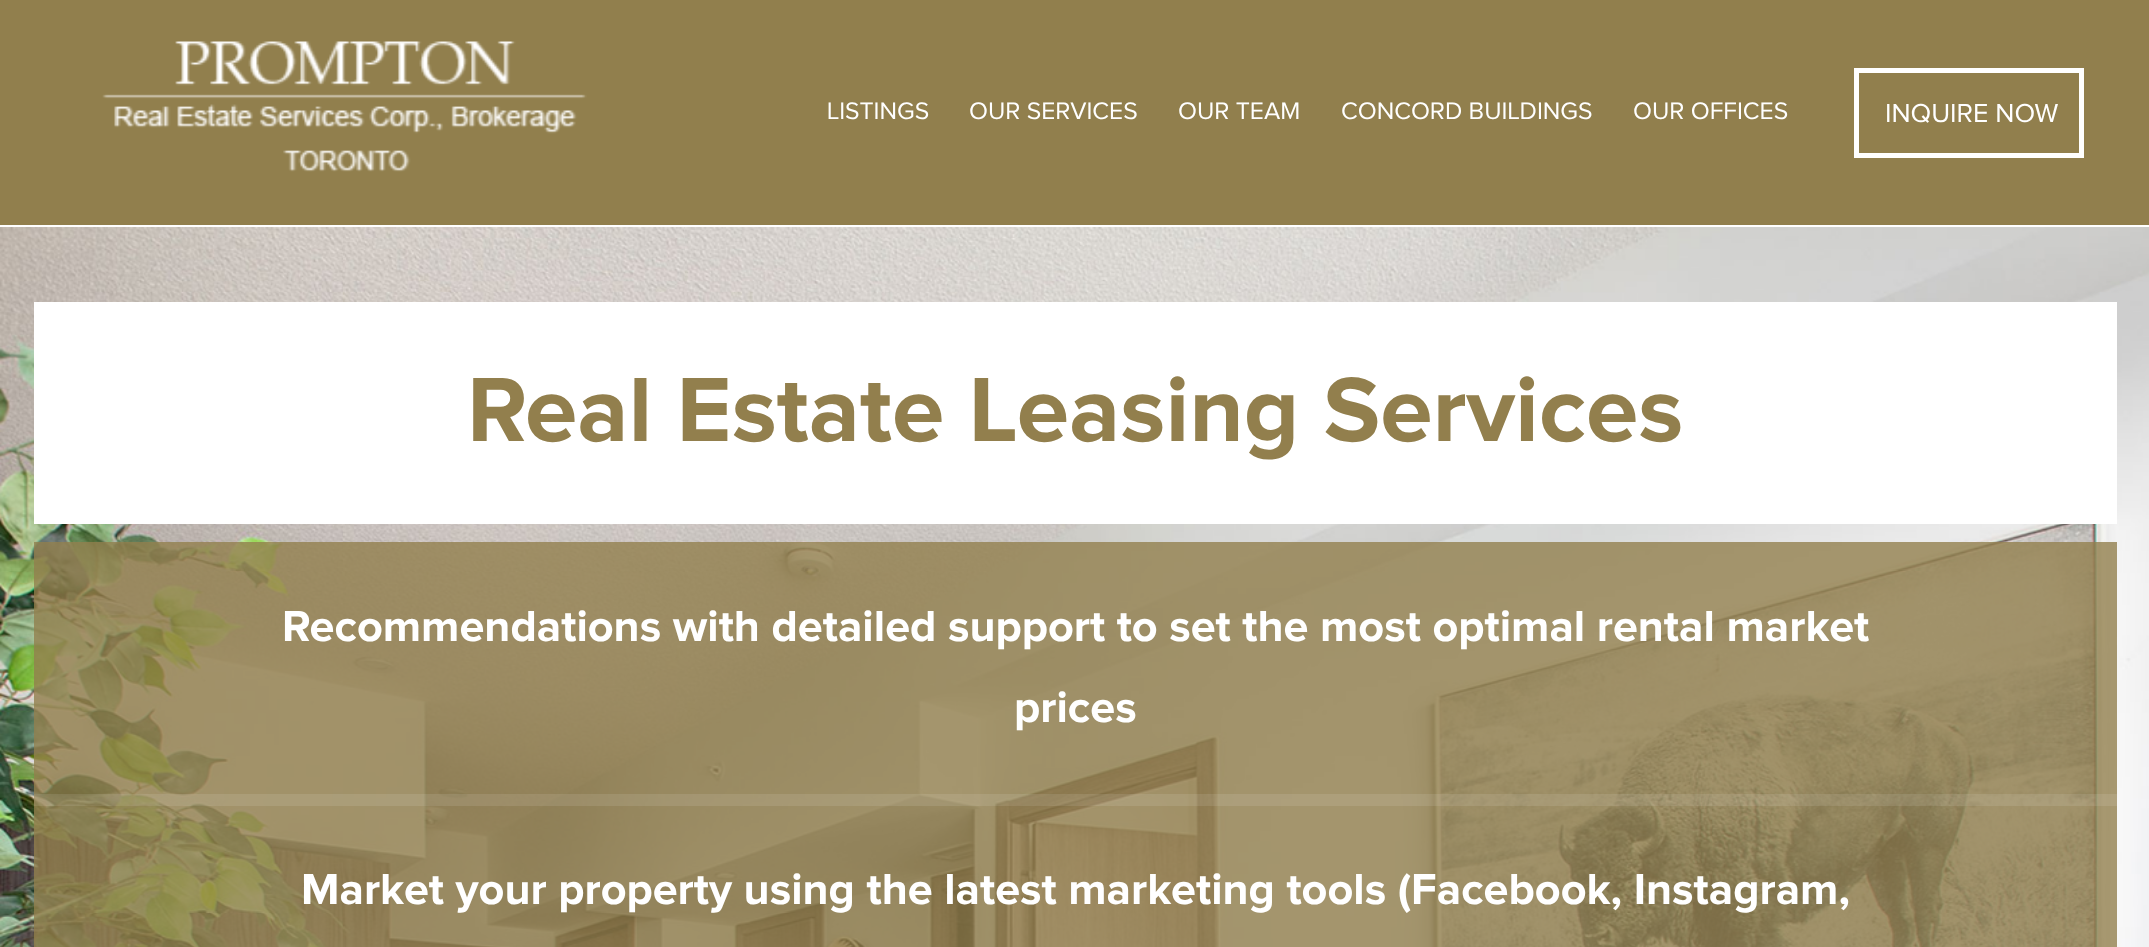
<svg xmlns="http://www.w3.org/2000/svg" width="2149" height="947" viewBox="0 0 2149 947">
  <style>
    .t1 { font: 24.75px Proxima Nova; fill: #fff; }
    .t2 { font: 27px Proxima Nova; fill: #fff; }
    .t3 { font: bold 94.5px Proxima Nova; fill: #927f4d; }
    .t4 { font: bold 45px Proxima Nova; fill: #fff; }
  </style>
  <rect width="100%" height="100%" fill="#fff"/>
  <rect x="0" y="0" width="2149" height="225" fill="#917f4d"/>
  <image x="102" y="41" width="485" height="131" href="images/1.png"/>
  <text x="827" y="119" class="t1">LISTINGS</text>
  <text x="969" y="119" class="t1">OUR SERVICES</text>
  <text x="1178" y="119" class="t1">OUR TEAM</text>
  <text x="1341" y="119" class="t1">CONCORD BUILDINGS</text>
  <text x="1633" y="119" class="t1">OUR OFFICES</text>
  <rect x="1856.5" y="70.5" width="225" height="85" fill="none" stroke="#fff" stroke-width="5"/>
  <text x="1885" y="122" class="t2">INQUIRE NOW</text>
  <image x="0" y="227" width="2149" height="720" href="images/2.png"/>
  <rect x="34" y="302" width="2083" height="222" fill="#fff"/>
  <text x="467" y="441" class="t3">Real Estate Leasing Services</text>
  <rect x="34" y="542" width="2083" height="264" fill="#927f4dcc"/>
  <rect x="34" y="794" width="2083" height="12" fill="#ffffff1a"/>
  <text x="282" y="641" class="t4">Recommendations with detailed support to set the most optimal rental market</text>
  <text x="1014" y="722" class="t4">prices</text>
  <rect x="34" y="806" width="2083" height="141" fill="#927f4dcc"/>
  <text x="301" y="904" class="t4">Market your property using the latest marketing tools (Facebook, Instagram,</text>
</svg>
